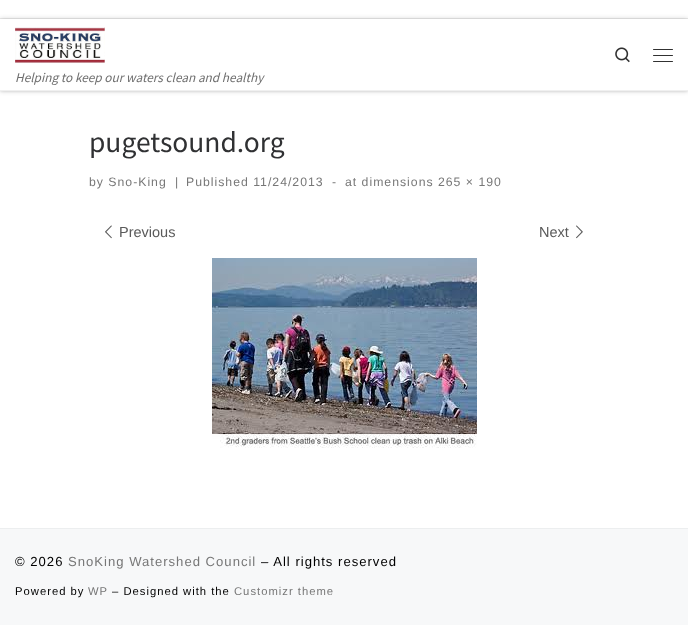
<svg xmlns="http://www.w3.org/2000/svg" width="688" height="625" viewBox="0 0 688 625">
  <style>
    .t1 { font: italic 13.25px Source Sans Pro; fill: #6f6f6f; }
    .t2 { font: 29.5px Source Sans Pro; fill: #303133; }
    .t3 { font: 12.25px Liberation Sans; letter-spacing: 1px; fill: #777; }
    .t4 { font: 14.5px Liberation Sans; fill: #5a5a5a; }
    .t5 { font: 13.1px Liberation Sans; letter-spacing: 1px; fill: #000; }
    .t6 { font: 13.1px Liberation Sans; letter-spacing: 1px; fill: #777; }
    .t7 { font: 11.25px Liberation Sans; letter-spacing: 1px; fill: #000; }
    .t8 { font: 11.25px Liberation Sans; letter-spacing: 1px; fill: #777; }
  </style>
  <defs>
    <clipPath id="clip1"><rect x="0" y="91" width="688" height="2"/></clipPath>
  </defs>
  <rect width="100%" height="100%" fill="#fff"/>
  <g clip-path="url(#clip1)">
    <rect x="0" y="-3" width="688" height="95" fill="#66666614" filter="blur(1px)"/>
  </g>
  <rect x="0" y="18" width="688" height="1" fill="#ececec"/>
  <rect x="0" y="19" width="688" height="72" fill="#00000033" filter="blur(2.5px)"/>
  <rect x="0" y="19" width="688" height="71" fill="#fff"/>
  <image x="615" y="47" width="15" height="16" href="images/1.png"/>
  <rect x="653" y="49" width="20" height="1" rx="0.5" fill="#313131"/>
  <rect x="653" y="55" width="20" height="1" rx="0.5" fill="#313131"/>
  <rect x="653" y="61" width="20" height="1" rx="0.5" fill="#313131"/>
  <image x="15" y="27" width="90" height="36" href="images/2.png"/>
  <text x="15" y="82" class="t1">Helping to keep our waters clean and healthy</text>
  <rect x="0" y="90" width="688" height="1" fill="#f0f0f0"/>
  <text x="89" y="152" class="t2">pugetsound.org</text>
  <text x="89" y="186" class="t3">by Sno-King</text>
  <text x="175" y="186" class="t3">|</text>
  <text x="186" y="186" class="t3">Published 11/24/2013</text>
  <text x="332" y="186" class="t3">-</text>
  <text x="345" y="186" class="t3">at dimensions 265 × 190</text>
  <image x="105" y="225" width="7" height="14" href="images/3.png"/>
  <text x="119" y="237" class="t4">Previous</text>
  <text x="539" y="237" class="t4">Next</text>
  <image x="576" y="225" width="7" height="14" href="images/4.png"/>
  <image x="212" y="258" width="265" height="190" href="images/5.png"/>
  <rect x="0" y="528" width="688" height="1" fill="#eceeef"/>
  <rect x="0" y="529" width="688" height="96" fill="#f7f8f9"/>
  <text x="15" y="566" class="t5">© 2026</text>
  <text x="68" y="566" class="t6">SnoKing Watershed Council</text>
  <text x="261" y="566" class="t5">– All rights reserved</text>
  <text x="15" y="595" class="t7">Powered by</text>
  <text x="88" y="595" class="t8">WP</text>
  <text x="112" y="595" class="t7">– Designed with the</text>
  <text x="234" y="595" class="t8">Customizr theme</text>
</svg>
